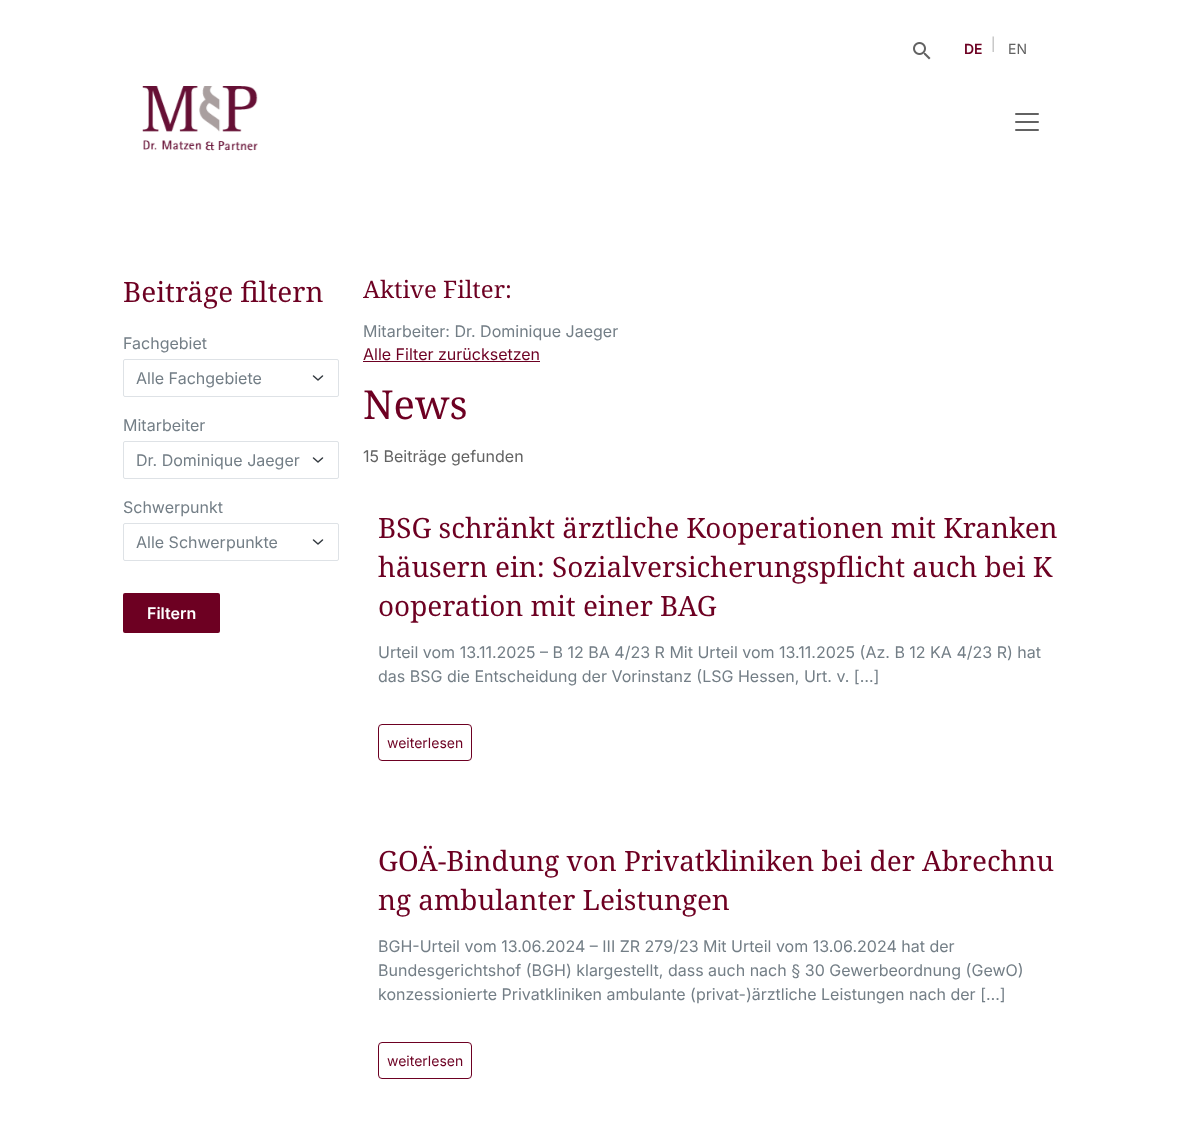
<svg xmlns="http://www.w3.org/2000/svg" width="1182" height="1145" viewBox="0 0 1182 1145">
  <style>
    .t1 { font: 600 14px Inter; fill: #6d0022; }
    .t2 { font: 13px Inter; fill: #b1b1b1; }
    .t3 { font: 14px Inter; fill: #626262; }
    .t4 { font: 27.9px Noto Serif; fill: #6d0022; }
    .t5 { font: 16px Inter; fill: #737e86; }
    .t6 { font: 600 16px Inter; fill: #fff; }
    .t7 { font: 24px Noto Serif; fill: #6d0022; }
    .t8 { font: 16px Inter; fill: #6d0022; }
    .t9 { font: 40px Noto Serif; fill: #6d0022; }
    .t10 { font: 16px Inter; fill: #626262; }
    .t11 { font: 14px Inter; fill: #6d0022; }
  </style>
  <rect width="100%" height="100%" fill="#fff"/>
  <image x="913" y="42" width="18" height="18" href="images/1.png"/>
  <text x="964" y="54" class="t1">DE</text>
  <text x="991" y="49" class="t2">|</text>
  <text x="1008" y="54" class="t3">EN</text>
  <image x="142" y="86" width="116" height="65" href="images/2.png"/>
  <rect x="1015" y="113" width="24" height="2" rx="1" fill="#626262"/>
  <rect x="1015" y="121" width="24" height="2" rx="1" fill="#626262"/>
  <rect x="1015" y="129" width="24" height="2" rx="1" fill="#626262"/>
  <text x="123" y="302" class="t4">Beiträge filtern</text>
  <text x="123" y="349" class="t5">Fachgebiet</text>
  <path d="M313.5 376L318 380L322.5 376" fill="none" stroke="#343a40" stroke-width="1.5" stroke-linecap="round" stroke-linejoin="round"/>
  <rect x="123.5" y="359.5" width="215" height="37" rx="1.5" fill="none" stroke="#dee2e6"/>
  <text x="136" y="384" class="t5">Alle Fachgebiete</text>
  <text x="123" y="431" class="t5">Mitarbeiter</text>
  <path d="M313.5 458L318 462L322.5 458" fill="none" stroke="#343a40" stroke-width="1.5" stroke-linecap="round" stroke-linejoin="round"/>
  <rect x="123.5" y="441.5" width="215" height="37" rx="1.5" fill="none" stroke="#dee2e6"/>
  <text x="136" y="466" class="t5">Dr. Dominique Jaeger</text>
  <text x="123" y="513" class="t5">Schwerpunkt</text>
  <path d="M313.5 540L318 544L322.5 540" fill="none" stroke="#343a40" stroke-width="1.5" stroke-linecap="round" stroke-linejoin="round"/>
  <rect x="123.5" y="523.5" width="215" height="37" rx="1.5" fill="none" stroke="#dee2e6"/>
  <text x="136" y="548" class="t5">Alle Schwerpunkte</text>
  <rect x="123" y="593" width="97" height="40" rx="2" fill="#6d0022"/>
  <text x="147" y="619" class="t6">Filtern</text>
  <text x="363" y="298" class="t7">Aktive Filter:</text>
  <text x="363" y="337" class="t5">Mitarbeiter: Dr. Dominique Jaeger</text>
  <text x="363" y="360" class="t8">Alle Filter zurücksetzen</text>
  <rect x="363" y="361" width="177" height="1" fill="#6d0022"/>
  <text x="363" y="419" class="t9">News</text>
  <text x="363" y="462" class="t10">15 Beiträge gefunden</text>
  <text x="378" y="538" class="t4">BSG schränkt ärztliche Kooperationen mit Kranken</text>
  <text x="378" y="577" class="t4">häusern ein: Sozialversicherungspflicht auch bei K</text>
  <text x="378" y="616" class="t4">ooperation mit einer BAG</text>
  <text x="378" y="658" class="t5">Urteil vom 13.11.2025 – B 12 BA 4/23 R Mit Urteil vom 13.11.2025 (Az. B 12 KA 4/23 R) hat</text>
  <text x="378" y="682" class="t5">das BSG die Entscheidung der Vorinstanz (LSG Hessen, Urt. v. […]</text>
  <rect x="378.5" y="724.5" width="93" height="36" rx="3.5" fill="none" stroke="#6d0022"/>
  <text x="387" y="748" class="t11">weiterlesen</text>
  <text x="378" y="871" class="t4">GOÄ-Bindung von Privatkliniken bei der Abrechnu</text>
  <text x="378" y="910" class="t4">ng ambulanter Leistungen</text>
  <text x="378" y="952" class="t5">BGH-Urteil vom 13.06.2024 – III ZR 279/23 Mit Urteil vom 13.06.2024 hat der</text>
  <text x="378" y="976" class="t5">Bundesgerichtshof (BGH) klargestellt, dass auch nach § 30 Gewerbeordnung (GewO)</text>
  <text x="378" y="1000" class="t5">konzessionierte Privatkliniken ambulante (privat-)ärztliche Leistungen nach der […]</text>
  <rect x="378.5" y="1042.5" width="93" height="36" rx="3.5" fill="none" stroke="#6d0022"/>
  <text x="387" y="1066" class="t11">weiterlesen</text>
</svg>
